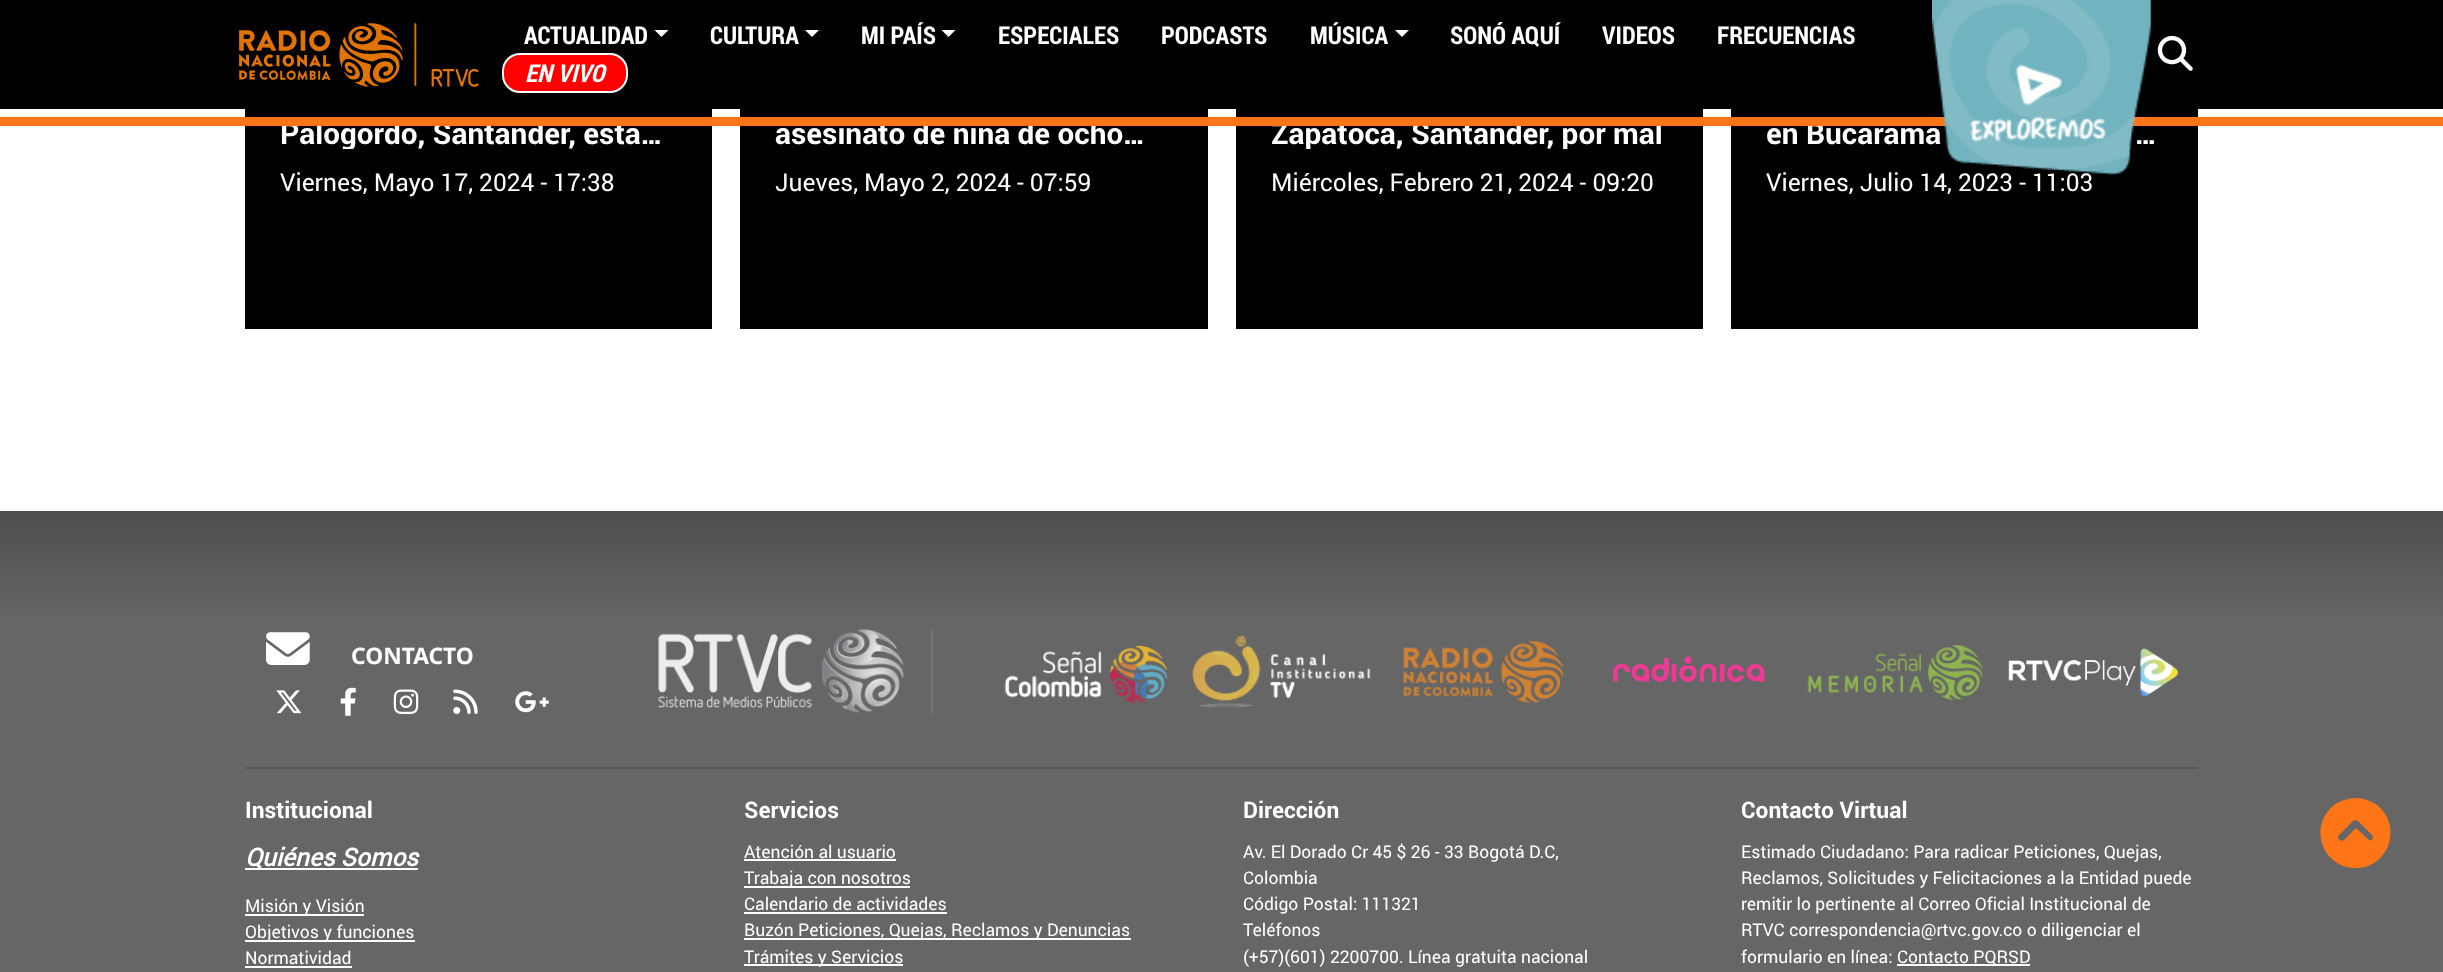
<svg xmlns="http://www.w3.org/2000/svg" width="2443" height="972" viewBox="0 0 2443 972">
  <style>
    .t1 { font: bold 29.75px Roboto; fill: #fff; }
    .t2 { font: bold 24.5px Roboto Condensed; fill: #fff; }
    .t3 { font: italic bold 24.5px Roboto Condensed; fill: #fff; }
    .t4 { font: 24.5px Roboto; fill: #fff; }
    .t5 { font: bold 22.75px Noto Sans; fill: #fff; }
    .t6 { font: bold 22.75px Roboto; fill: #fff; }
    .t7 { font: italic bold 24.5px Roboto; fill: #fff; }
    .t8 { font: 17.5px Roboto; fill: #fff; }
  </style>
  <defs>
    <clipPath id="clip1"><rect x="280" y="86" width="397" height="63"/></clipPath>
    <clipPath id="clip2"><rect x="1271" y="86" width="397" height="63"/></clipPath>
    <linearGradient id="g1" gradientUnits="userSpaceOnUse" x1="1222" y1="511" x2="1222" y2="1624"><stop offset="0" stop-color="#4e4e4e"/><stop offset="0.1" stop-color="#666"/></linearGradient>
  </defs>
  <rect width="100%" height="100%" fill="#fff"/>
  <rect x="245" y="109" width="467" height="220" fill="#000"/>
  <g clip-path="url(#clip1)">
    <text x="280" y="144" class="t1">Palogordo, Santander, está…</text>
  </g>
  <rect x="740" y="109" width="468" height="220" fill="#000"/>
  <text x="775" y="144" class="t1">asesinato de niña de ocho…</text>
  <rect x="1236" y="109" width="467" height="220" fill="#000"/>
  <g clip-path="url(#clip2)">
    <text x="1271" y="144" class="t1">Zapatoca, Santander, por mal</text>
  </g>
  <rect x="1731" y="109" width="467" height="220" fill="#000"/>
  <text x="1766" y="144" class="t1">en Bucarama</text>
  <rect x="0" y="117" width="2443" height="9" fill="#fd7517"/>
  <rect x="0" y="0" width="2443" height="109" fill="#000"/>
  <image x="239" y="23" width="240" height="64" href="images/1.png"/>
  <text x="524" y="44" class="t2">ACTUALIDAD</text>
  <path d="M654.5 30H668.5L661.5 37Z" fill="#fff"/>
  <text x="710" y="44" class="t2">CULTURA</text>
  <path d="M805 30H819L812 37Z" fill="#fff"/>
  <text x="861" y="44" class="t2">MI PAÍS</text>
  <path d="M941.5 30H955.5L948.5 37Z" fill="#fff"/>
  <text x="998" y="44" class="t2">ESPECIALES</text>
  <text x="1161" y="44" class="t2">PODCASTS</text>
  <text x="1310" y="44" class="t2">MÚSICA</text>
  <path d="M1395 30H1409L1402 37Z" fill="#fff"/>
  <text x="1450" y="44" class="t2">SONÓ AQUÍ</text>
  <text x="1602" y="44" class="t2">VIDEOS</text>
  <text x="1717" y="44" class="t2">FRECUENCIAS</text>
  <rect x="503" y="54" width="124" height="38" rx="17" fill="#f00" stroke="#fff" stroke-width="2"/>
  <text x="525" y="82" class="t3">EN VIVO</text>
  <text x="2135" y="144" class="t1">…</text>
  <text x="1766" y="191" class="t4">Viernes, Julio 14, 2023 - 11:03</text>
  <image x="1932" y="0" width="220" height="175" href="images/2.png"/>
  <image x="2157" y="35" width="36" height="36" href="images/3.png"/>
  <text x="280" y="191" class="t4">Viernes, Mayo 17, 2024 - 17:38</text>
  <text x="775" y="191" class="t4">Jueves, Mayo 2, 2024 - 07:59</text>
  <text x="1271" y="191" class="t4">Miércoles, Febrero 21, 2024 - 09:20</text>
  <rect x="0" y="511" width="2443" height="461" fill="url(#g1)"/>
  <image x="266" y="632" width="44" height="33" href="images/4.png"/>
  <text x="351" y="664" class="t5">CONTACTO</text>
  <image x="276" y="690" width="26" height="24" href="images/5.png"/>
  <image x="340" y="687" width="16" height="29" href="images/6.png"/>
  <image x="393" y="689" width="26" height="25" href="images/7.png"/>
  <image x="453" y="689" width="25" height="25" href="images/8.png"/>
  <image x="515" y="691" width="34" height="22" href="images/9.png"/>
  <image x="658" y="629" width="276" height="85" href="images/10.png"/>
  <image x="1004" y="645" width="164" height="58" href="images/11.png"/>
  <image x="1192" y="635" width="179" height="73" href="images/12.png"/>
  <image x="1403" y="640" width="161" height="63" href="images/13.png"/>
  <image x="1613" y="656" width="152" height="26" href="images/14.png"/>
  <image x="1807" y="645" width="176" height="55" href="images/15.png"/>
  <image x="2008" y="648" width="170" height="49" href="images/16.png"/>
  <rect x="245" y="767" width="1953" height="2" fill="#555657"/>
  <text x="245" y="818" class="t6">Institucional</text>
  <rect x="245" y="868" width="173" height="2" fill="#fff"/>
  <text x="245" y="866" class="t7">Quiénes Somos</text>
  <rect x="245" y="914" width="119" height="2" fill="#fff"/>
  <text x="245" y="912" class="t8">Misión y Visión</text>
  <rect x="245" y="940" width="170" height="2" fill="#fff"/>
  <text x="245" y="938" class="t8">Objetivos y funciones</text>
  <text x="245" y="964" class="t8">Normatividad</text>
  <rect x="245" y="966" width="107" height="2" fill="#fff"/>
  <text x="744" y="818" class="t6">Servicios</text>
  <text x="744" y="858" class="t8">Atención al usuario</text>
  <rect x="744" y="859" width="152" height="2" fill="#fff"/>
  <rect x="744" y="886" width="166" height="2" fill="#fff"/>
  <text x="744" y="884" class="t8">Trabaja con nosotros</text>
  <text x="744" y="910" class="t8">Calendario de actividades</text>
  <rect x="744" y="912" width="203" height="2" fill="#fff"/>
  <rect x="744" y="938" width="387" height="2" fill="#fff"/>
  <text x="744" y="936" class="t8">Buzón Peticiones, Quejas, Reclamos y Denuncias</text>
  <rect x="744" y="964" width="159" height="2" fill="#fff"/>
  <text x="744" y="963" class="t8">Trámites y Servicios</text>
  <text x="1243" y="818" class="t6">Dirección</text>
  <text x="1243" y="858" class="t8">Av. El Dorado Cr 45 $ 26 - 33 Bogotá D.C,</text>
  <text x="1243" y="884" class="t8">Colombia</text>
  <text x="1243" y="910" class="t8">Código Postal: 111321</text>
  <text x="1243" y="936" class="t8">Teléfonos</text>
  <text x="1243" y="963" class="t8">(+57)(601) 2200700. Línea gratuita nacional</text>
  <text x="1741" y="818" class="t6">Contacto Virtual</text>
  <text x="1741" y="858" class="t8">Estimado Ciudadano: Para radicar Peticiones, Quejas,</text>
  <text x="1741" y="884" class="t8">Reclamos, Solicitudes y Felicitaciones a la Entidad puede</text>
  <text x="1741" y="910" class="t8">remitir lo pertinente al Correo Oficial Institucional de</text>
  <text x="1741" y="936" class="t8">RTVC correspondencia@rtvc.gov.co o diligenciar el</text>
  <text x="1741" y="963" class="t8">formulario en línea:</text>
  <rect x="1897" y="964" width="133" height="2" fill="#fff"/>
  <text x="1897" y="963" class="t8">Contacto PQRSD</text>
  <path d="M2356 868C2389 868 2403 826 2377 805C2371 801 2363 798 2356 798C2348 798 2340 801 2334 805C2308 826 2322 868 2356 868ZM2372 835C2374 838 2372 842 2369 840L2356 828L2344 840C2342 841 2341 841 2339 840C2338 838 2338 837 2339 835L2353 821C2355 820 2356 820 2358 821Z" fill="#fd7517"/>
</svg>
